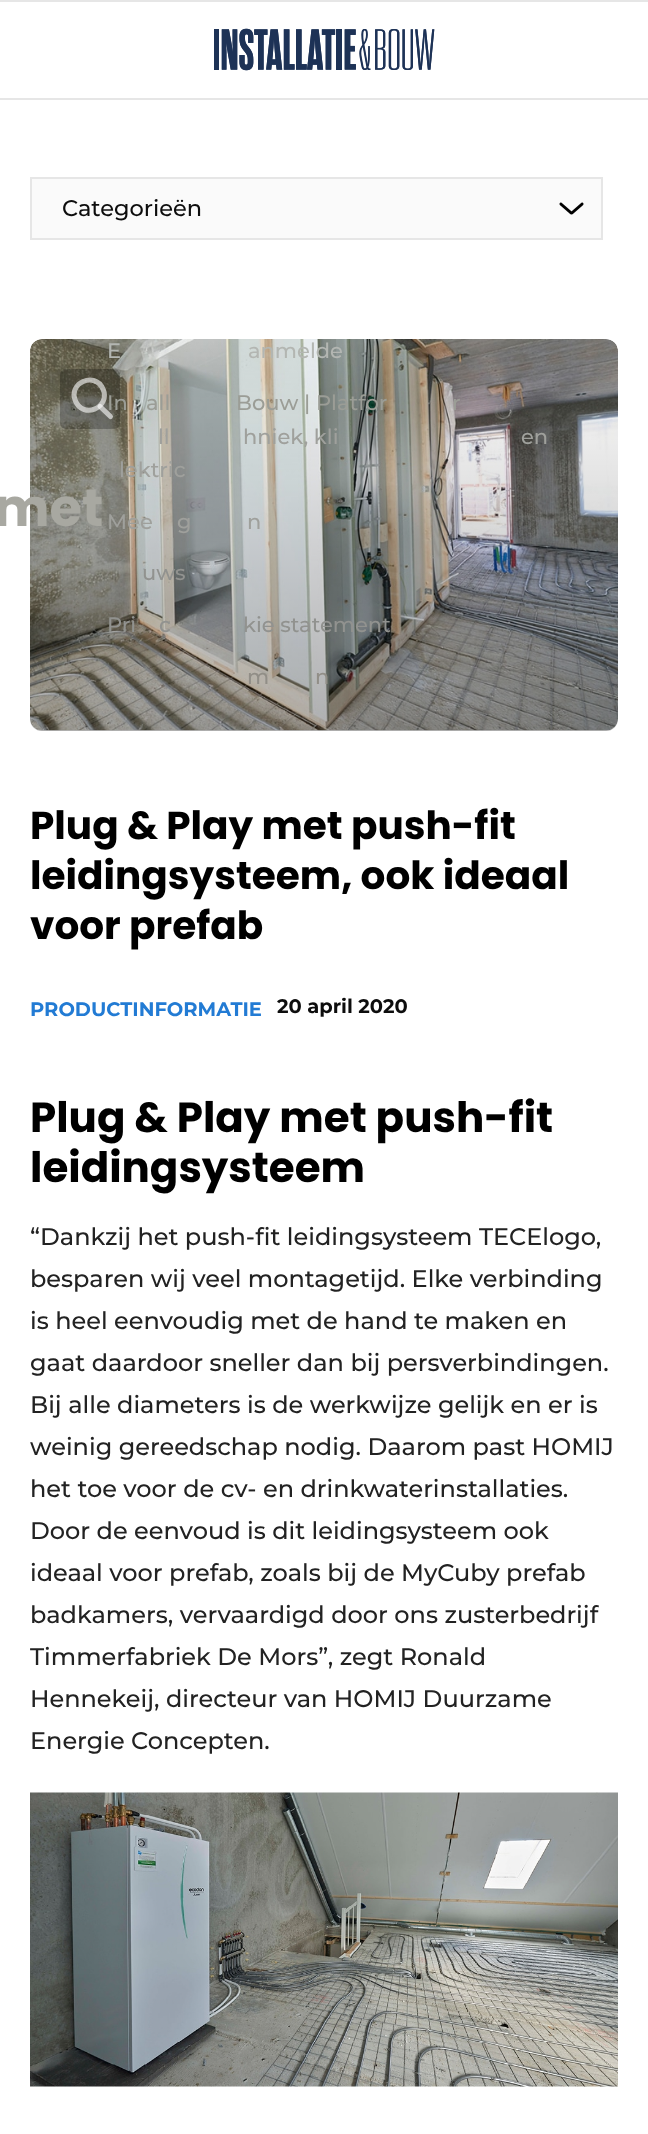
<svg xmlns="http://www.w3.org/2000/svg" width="648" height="2134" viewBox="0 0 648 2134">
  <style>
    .t1 { font: 500 22.5px Montserrat; fill: #0d0d0d; }
    .t2 { font: bold 52.5px Poppins; fill: #a8a8a1; }
    .t3 { font: 500 21px Montserrat; fill: #b3b6b2; }
    .t4 { font: 500 21px Montserrat; fill: #9b9d96; }
    .t5 { font: 500 21px Montserrat; fill: #9fa09c; }
    .t6 { font: 500 21px Montserrat; fill: #91928f; }
    .t7 { font: 500 21px Montserrat; fill: #918e87; }
    .t8 { font: bold 39px Poppins; fill: #000; }
    .t9 { font: bold 19.5px Montserrat; fill: #227bd4; }
    .t10 { font: bold 19.5px Montserrat; fill: #0d0d0d; }
    .t11 { font: bold 42px Poppins; fill: #000; }
    .t12 { font: 500 24px Montserrat; fill: #222; }
  </style>
  <defs>
    <linearGradient id="g1" gradientUnits="userSpaceOnUse" x1="324" y1="339" x2="324" y2="731"><stop offset="0" stop-color="#000" stop-opacity="0"/><stop offset="1" stop-color="#000" stop-opacity="0.3"/></linearGradient>
  </defs>
  <rect width="100%" height="100%" fill="#fff"/>
  <rect x="32" y="179" width="569" height="59" fill="#fafafa"/>
  <image x="559" y="202" width="25" height="13" href="images/1.png"/>
  <rect x="31" y="178" width="571" height="61" fill="none" stroke="#e6e6e6" stroke-width="2"/>
  <text x="62" y="216" class="t1">Categorieën</text>
  <image x="30" y="339" width="588" height="392" href="images/3.png"/>
  <rect x="30" y="339" width="588" height="392" rx="12" fill="url(#g1)"/>
  <text x="-6" y="526" class="t2">met</text>
  <rect x="0" y="0" width="648" height="2" fill="#e6e6e6"/>
  <image x="214" y="28" width="221" height="43" href="images/2.png"/>
  <rect x="0" y="98" width="648" height="2" fill="#e6e6e6"/>
  <text x="107" y="358" class="t3">E</text>
  <text x="248" y="358" class="t3">anmelde</text>
  <rect x="60" y="369" width="60" height="60" rx="6" fill="#0000003d"/>
  <path d="M75.5 401C83 419.5 111 407.5 103 389C95 371 67.5 383 75.5 401Z" fill="none" stroke="#ffffff99" stroke-width="5.1" stroke-linecap="round" stroke-linejoin="round"/>
  <path d="M100 406.5L110.5 416.5" fill="none" stroke="#ffffff99" stroke-width="5.1" stroke-linecap="round" stroke-linejoin="round"/>
  <text x="107" y="410" class="t4">In</text>
  <text x="146" y="410" class="t4">all</text>
  <text x="236" y="410" class="t4">Bouw | Platfor</text>
  <text x="452" y="410" class="t4">r</text>
  <text x="158" y="444" class="t5">ll</text>
  <text x="243" y="444" class="t5">hniek, kli</text>
  <text x="521" y="444" class="t5">en</text>
  <text x="119" y="477" class="t5">lektric</text>
  <text x="107" y="529" class="t5">Mee</text>
  <text x="177" y="529" class="t5">g</text>
  <text x="247" y="529" class="t5">n</text>
  <text x="142" y="580" class="t6">uws</text>
  <text x="107" y="632" class="t6">Pri</text>
  <text x="159" y="632" class="t6">c</text>
  <text x="243" y="632" class="t6">kie statement</text>
  <text x="247" y="684" class="t7">m</text>
  <text x="315" y="684" class="t7">n</text>
  <text x="30" y="839" class="t8">Plug &amp; Play met push-fit</text>
  <text x="30" y="889" class="t8">leidingsysteem, ook ideaal</text>
  <text x="30" y="939" class="t8">voor prefab</text>
  <text x="30" y="1016" class="t9">PRODUCTINFORMATIE</text>
  <text x="277" y="1013" class="t10">20 april 2020</text>
  <text x="30" y="1132" class="t11">Plug &amp; Play met push-fit</text>
  <text x="30" y="1182" class="t11">leidingsysteem</text>
  <text x="30" y="1245" class="t12">“Dankzij het push-fit leidingsysteem TECElogo,</text>
  <text x="30" y="1287" class="t12">besparen wij veel montagetijd. Elke verbinding</text>
  <text x="30" y="1329" class="t12">is heel eenvoudig met de hand te maken en</text>
  <text x="30" y="1371" class="t12">gaat daardoor sneller dan bij persverbindingen.</text>
  <text x="30" y="1413" class="t12">Bij alle diameters is de werkwijze gelijk en er is</text>
  <text x="30" y="1455" class="t12">weinig gereedschap nodig. Daarom past HOMIJ</text>
  <text x="30" y="1497" class="t12">het toe voor de cv- en drinkwaterinstallaties.</text>
  <text x="30" y="1539" class="t12">Door de eenvoud is dit leidingsysteem ook</text>
  <text x="30" y="1581" class="t12">ideaal voor prefab, zoals bij de MyCuby prefab</text>
  <text x="30" y="1623" class="t12">badkamers, vervaardigd door ons zusterbedrijf</text>
  <text x="30" y="1665" class="t12">Timmerfabriek De Mors”, zegt Ronald</text>
  <text x="30" y="1707" class="t12">Hennekeij, directeur van HOMIJ Duurzame</text>
  <text x="30" y="1749" class="t12">Energie Concepten.</text>
  <image x="30" y="1792" width="588" height="295" href="images/4.png"/>
</svg>
